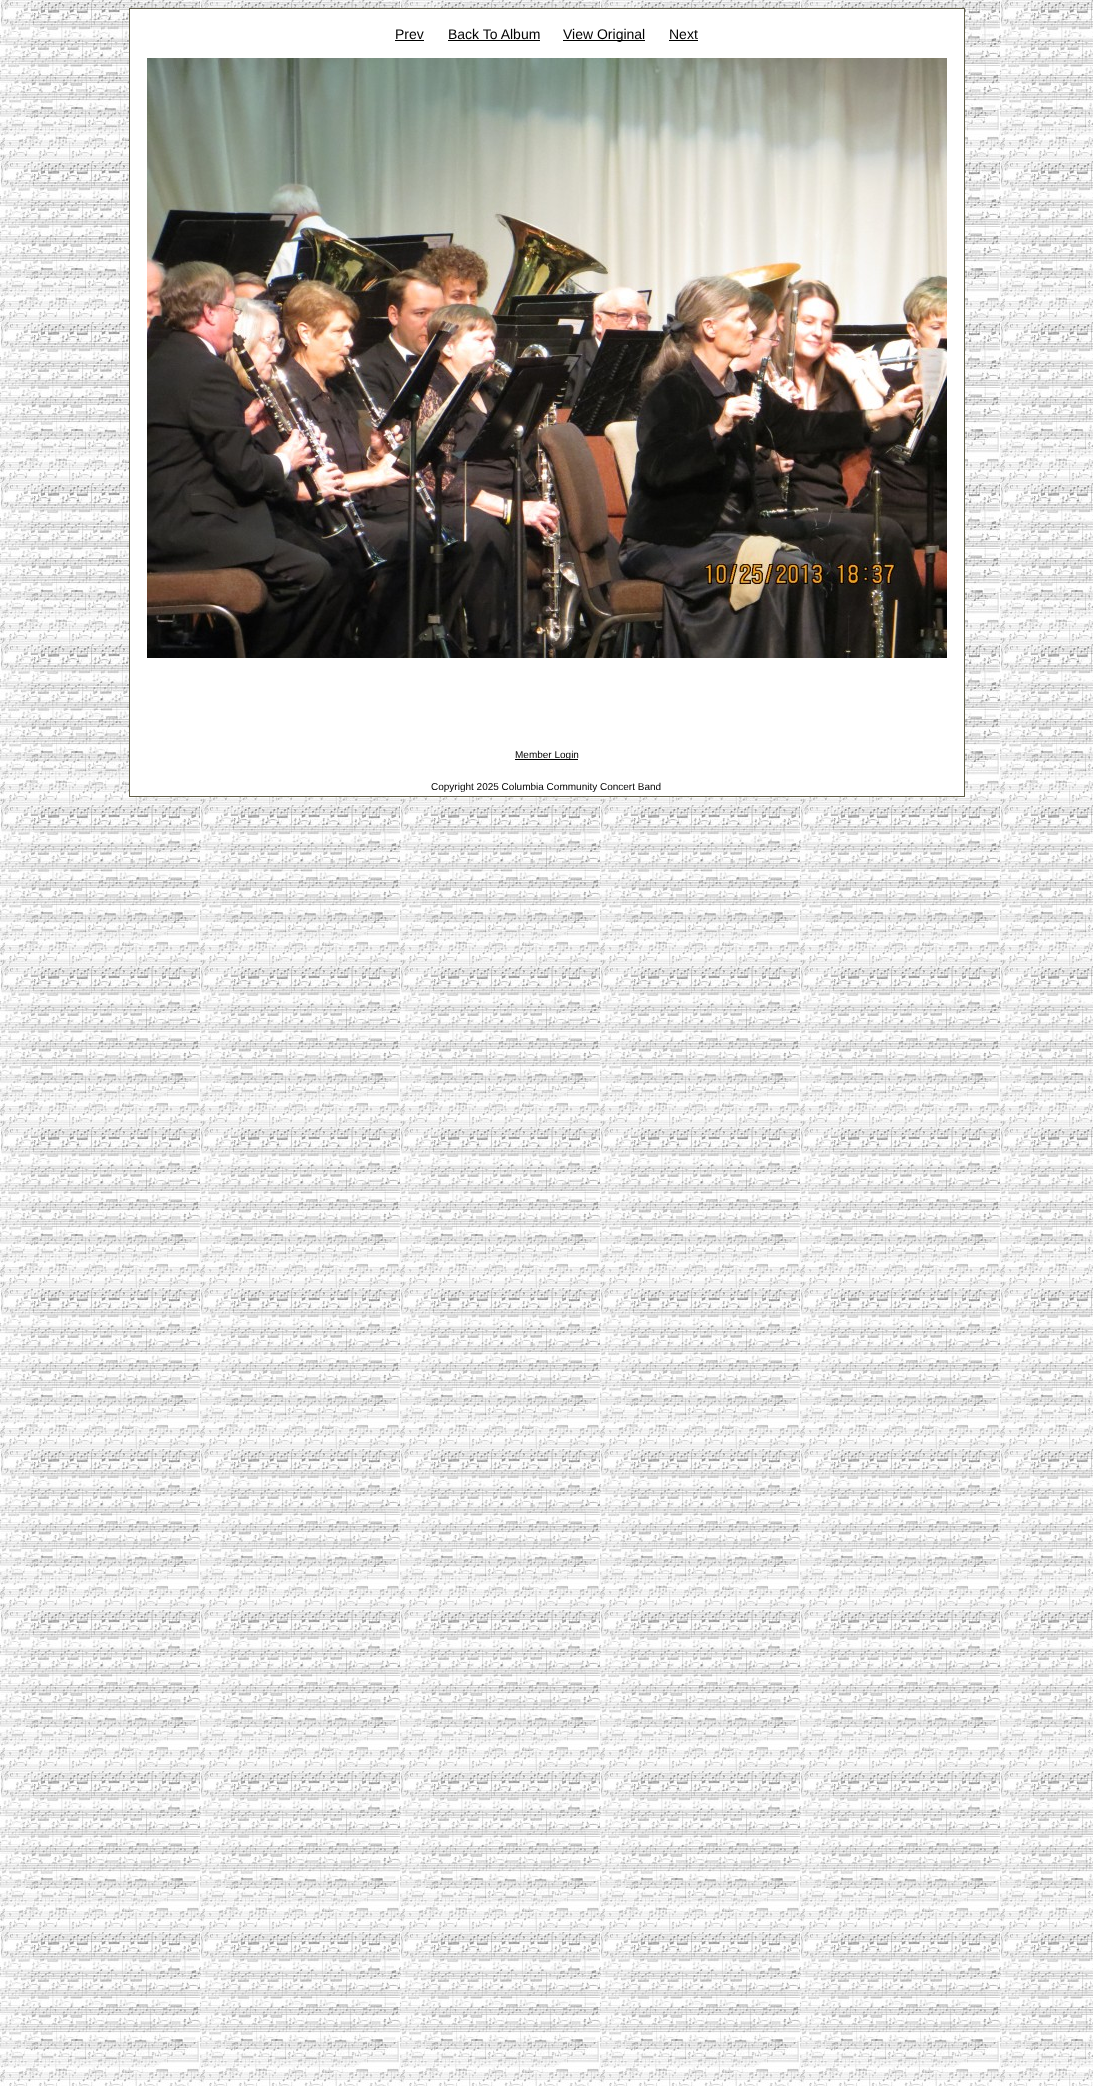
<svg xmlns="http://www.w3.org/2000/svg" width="1093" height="2086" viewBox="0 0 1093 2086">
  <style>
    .t1 { font: 14px Liberation Sans; fill: #000; }
    .t2 { font: 10px Liberation Sans; fill: #000; }
  </style>
  <rect width="100%" height="100%" fill="#fff"/>
  <image x="0" y="0" width="1093" height="2086" href="images/1.png"/>
  <rect x="129.5" y="8.5" width="835" height="788" fill="#fff" stroke="#615e47"/>
  <text x="395" y="39" class="t1">Prev</text>
  <rect x="395" y="40" width="29" height="1" fill="#000"/>
  <text x="448" y="39" class="t1">Back To Album</text>
  <rect x="448" y="40" width="92" height="1" fill="#000"/>
  <rect x="563" y="40" width="82" height="1" fill="#000"/>
  <text x="563" y="39" class="t1">View Original</text>
  <text x="669" y="39" class="t1">Next</text>
  <rect x="669" y="40" width="29" height="1" fill="#000"/>
  <image x="147" y="58" width="800" height="600" href="images/2.png"/>
  <rect x="515" y="759" width="63" height="1" fill="#000"/>
  <text x="515" y="758" class="t2">Member Login</text>
  <text x="431" y="790" class="t2">Copyright 2025 Columbia Community Concert Band</text>
</svg>
